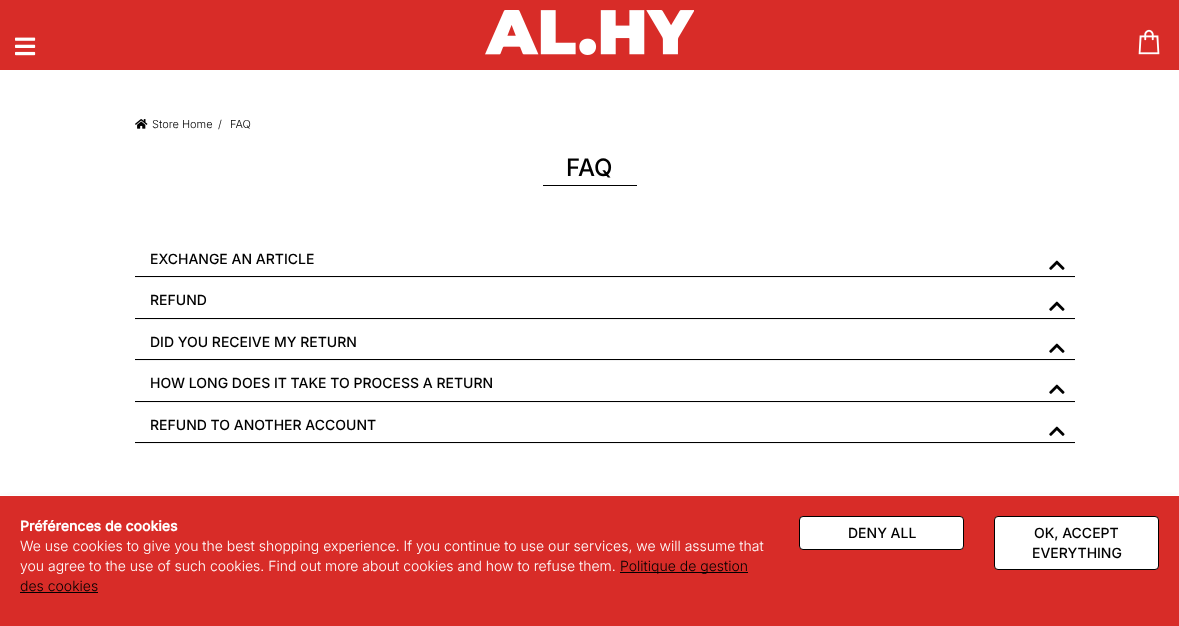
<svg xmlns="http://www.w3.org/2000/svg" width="1179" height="626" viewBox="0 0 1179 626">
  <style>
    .t1 { font: 300 11px Inter; fill: #000; }
    .t2 { font: 500 24px Inter; fill: #000; }
    .t3 { font: 500 14px Inter; fill: #000; }
    .t4 { font: bold 14px Inter; fill: #fff; }
    .t5 { font: 300 14px Inter; fill: #fff; }
    .t6 { font: 300 14px Inter; fill: #000; }
  </style>
  <defs>
    <clipPath id="clip1"><rect x="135" y="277" width="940" height="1"/></clipPath>
    <clipPath id="clip2"><rect x="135" y="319" width="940" height="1"/></clipPath>
    <clipPath id="clip3"><rect x="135" y="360" width="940" height="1"/></clipPath>
    <clipPath id="clip4"><rect x="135" y="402" width="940" height="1"/></clipPath>
    <clipPath id="clip5"><rect x="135" y="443" width="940" height="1"/></clipPath>
  </defs>
  <rect width="100%" height="100%" fill="#fff"/>
  <rect x="0" y="0" width="1179" height="70" fill="#d82c28"/>
  <image x="15" y="37" width="21" height="19" href="images/1.png"/>
  <image x="485" y="10" width="209" height="45" href="images/2.png"/>
  <image x="1138" y="29" width="22" height="26" href="images/3.png"/>
  <image x="135" y="119" width="13" height="10" href="images/4.png"/>
  <text x="152" y="128" class="t1">Store Home</text>
  <text x="218" y="128" class="t1">/</text>
  <text x="230" y="128" class="t1">FAQ</text>
  <text x="566" y="176" class="t2">FAQ</text>
  <rect x="543" y="185" width="94" height="1" fill="#000"/>
  <g clip-path="url(#clip1)">
    <rect x="135" y="242" width="940" height="36" fill="#0000000d" filter="blur(0.5px)"/>
  </g>
  <rect x="135" y="276" width="940" height="1" fill="#000"/>
  <text x="150" y="264" class="t3">EXCHANGE AN ARTICLE</text>
  <image x="1049" y="260" width="16" height="10" href="images/5.png"/>
  <g clip-path="url(#clip2)">
    <rect x="135" y="283" width="940" height="37" fill="#0000000d" filter="blur(0.5px)"/>
  </g>
  <rect x="135" y="318" width="940" height="1" fill="#000"/>
  <text x="150" y="305" class="t3">REFUND</text>
  <image x="1049" y="301" width="16" height="10" href="images/5.png"/>
  <g clip-path="url(#clip3)">
    <rect x="135" y="325" width="940" height="36" fill="#0000000d" filter="blur(0.5px)"/>
  </g>
  <rect x="135" y="359" width="940" height="1" fill="#000"/>
  <text x="150" y="347" class="t3">DID YOU RECEIVE MY RETURN</text>
  <image x="1049" y="343" width="16" height="10" href="images/5.png"/>
  <g clip-path="url(#clip4)">
    <rect x="135" y="366" width="940" height="37" fill="#0000000d" filter="blur(0.5px)"/>
  </g>
  <rect x="135" y="401" width="940" height="1" fill="#000"/>
  <text x="150" y="388" class="t3">HOW LONG DOES IT TAKE TO PROCESS A RETURN</text>
  <image x="1049" y="384" width="16" height="10" href="images/5.png"/>
  <g clip-path="url(#clip5)">
    <rect x="135" y="408" width="940" height="36" fill="#0000000d" filter="blur(0.5px)"/>
  </g>
  <rect x="135" y="442" width="940" height="1" fill="#000"/>
  <text x="150" y="430" class="t3">REFUND TO ANOTHER ACCOUNT</text>
  <image x="1049" y="426" width="16" height="10" href="images/5.png"/>
  <rect x="0" y="500" width="1179" height="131" fill="#6666664d" filter="blur(5px)"/>
  <rect x="0" y="496" width="1179" height="130" fill="#d82c28"/>
  <rect x="0" y="495" width="1179" height="1" fill="#fff"/>
  <text x="20" y="531" class="t4">Préférences de cookies</text>
  <text x="20" y="551" class="t5">We use cookies to give you the best shopping experience. If you continue to use our services, we will assume that</text>
  <text x="20" y="571" class="t5">you agree to the use of such cookies. Find out more about cookies and how to refuse them.</text>
  <rect x="620" y="572" width="128" height="1" fill="#000"/>
  <text x="620" y="571" class="t6">Politique de gestion</text>
  <text x="20" y="591" class="t6">des cookies</text>
  <rect x="20" y="592" width="78" height="1" fill="#000"/>
  <rect x="799.5" y="516.5" width="164" height="33" rx="3.5" fill="#fff" stroke="#000"/>
  <text x="848" y="538" class="t3">DENY ALL</text>
  <rect x="994.5" y="516.5" width="164" height="53" rx="3.5" fill="#fff" stroke="#000"/>
  <text x="1034" y="538" class="t3">OK, ACCEPT</text>
  <text x="1032" y="558" class="t3">EVERYTHING</text>
</svg>
